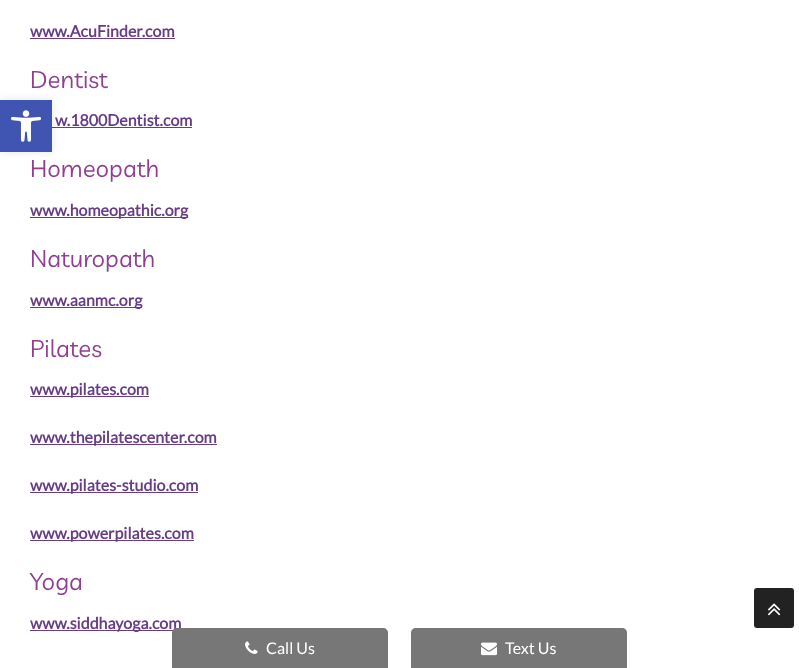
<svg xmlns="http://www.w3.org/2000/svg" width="799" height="668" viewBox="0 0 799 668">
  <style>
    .t1 { font: bold 16px Lato; fill: #683d85; }
    .t2 { font: 24px Livvic; fill: #903e90; }
    .t3 { font: 16px Lato; fill: #fff; }
  </style>
  <rect width="100%" height="100%" fill="#fff"/>
  <text x="30" y="37" class="t1">www.AcuFinder.com</text>
  <rect x="30" y="38" width="145" height="1" fill="#683d85"/>
  <text x="30" y="88" class="t2">Dentist</text>
  <text x="55" y="126" class="t1">w.1800Dentist.com</text>
  <rect x="52" y="127" width="140" height="1" fill="#683d85"/>
  <text x="30" y="177" class="t2">Homeopath</text>
  <rect x="30" y="217" width="158" height="1" fill="#683d85"/>
  <text x="30" y="216" class="t1">www.homeopathic.org</text>
  <text x="30" y="267" class="t2">Naturopath</text>
  <rect x="30" y="307" width="112" height="1" fill="#683d85"/>
  <text x="30" y="306" class="t1">www.aanmc.org</text>
  <text x="30" y="357" class="t2">Pilates</text>
  <rect x="30" y="396" width="119" height="1" fill="#683d85"/>
  <text x="30" y="395" class="t1">www.pilates.com</text>
  <rect x="30" y="444" width="187" height="1" fill="#683d85"/>
  <text x="30" y="443" class="t1">www.thepilatescenter.com</text>
  <rect x="30" y="492" width="168" height="1" fill="#683d85"/>
  <text x="30" y="491" class="t1">www.pilates-studio.com</text>
  <rect x="30" y="540" width="164" height="1" fill="#683d85"/>
  <text x="30" y="539" class="t1">www.powerpilates.com</text>
  <text x="30" y="590" class="t2">Yoga</text>
  <rect x="30" y="630" width="151" height="1" fill="#683d85"/>
  <text x="30" y="629" class="t1">www.siddhayoga.com</text>
  <rect x="0" y="100" width="52" height="52" fill="#0000001a" filter="blur(5px)"/>
  <rect x="0" y="100" width="52" height="52" fill="#4054b2"/>
  <image x="11" y="110" width="30" height="32" href="images/1.png"/>
  <rect x="754" y="588" width="40" height="40" rx="3" fill="#222"/>
  <image x="768" y="603" width="13" height="13" href="images/2.png"/>
  <path d="M177 628H383C386 628 388 630 388 633V668H172V633C172 630 174 628 177 628Z" fill="#777"/>
  <image x="245" y="641" width="13" height="13" href="images/3.png"/>
  <text x="266" y="654" class="t3">Call Us</text>
  <path d="M416 628H622C625 628 627 630 627 633V668H411V633C411 630 413 628 416 628Z" fill="#777"/>
  <image x="481" y="642" width="16" height="14" href="images/4.png"/>
  <text x="505" y="654" class="t3">Text Us</text>
</svg>
